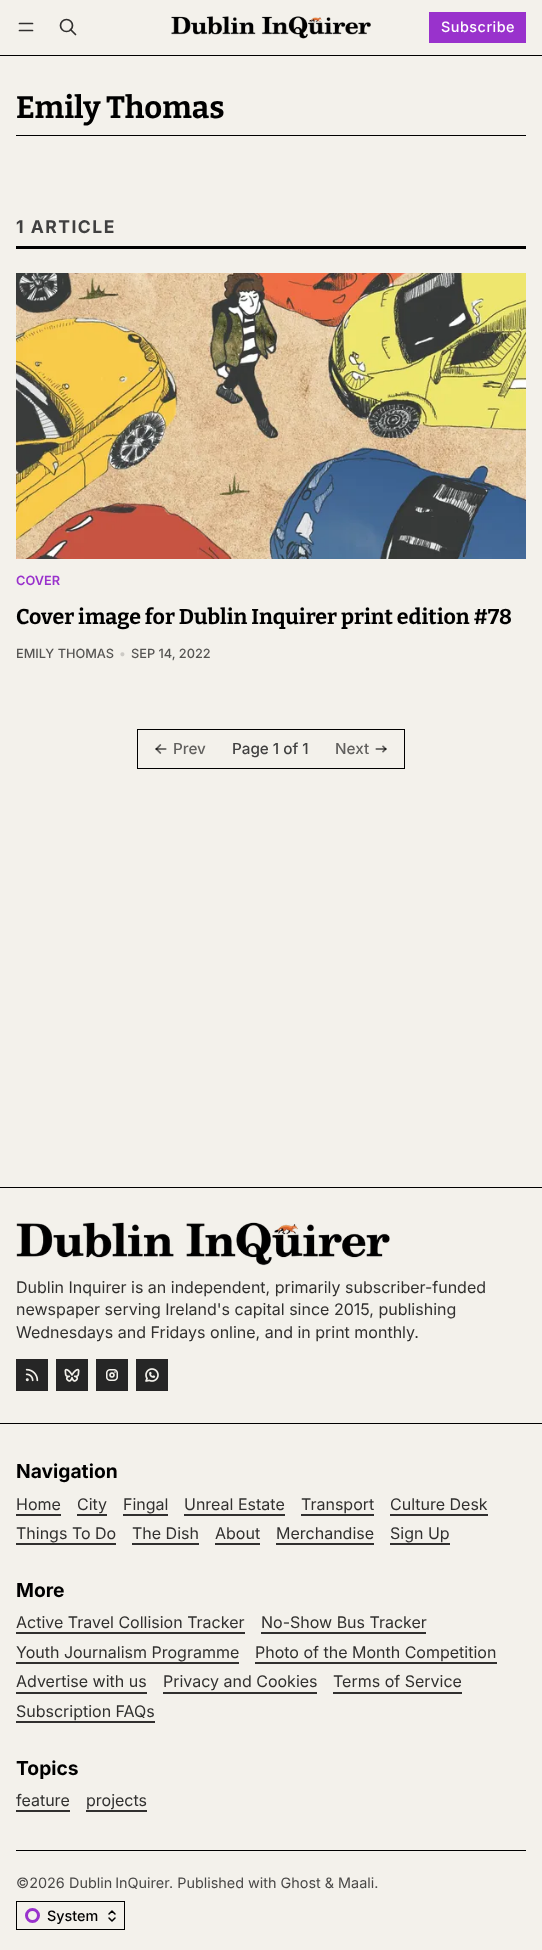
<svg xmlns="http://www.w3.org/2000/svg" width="542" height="1950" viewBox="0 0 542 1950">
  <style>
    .t1 { font: 500 14.4px Inter; letter-spacing: 0.5px; fill: #fff; }
    .t2 { font: bold 31px Bitter; fill: #000; }
    .t3 { font: bold 17.5px Inter; letter-spacing: 1.5px; fill: #404040; }
    .t4 { font: 600 12.75px Inter; fill: #9932cc; }
    .t5 { font: bold 21.4px Bitter; fill: #000; }
    .t6 { font: 500 12.75px Inter; fill: #555452; }
    .t7 { font: 500 12.75px Inter; fill: #cccac5; }
    .t8 { font: 500 15.25px Inter; fill: #61605e; }
    .t9 { font: 500 15.25px Inter; fill: #404040; }
    .t10 { font: 16px Inter; fill: #31302f; }
    .t11 { font: bold 19.25px Inter; fill: #000; }
    .t12 { font: 14.4px Inter; fill: #494847; }
    .t13 { font: 500 14.4px Inter; fill: #000; }
  </style>
  <rect width="100%" height="100%" fill="#f3f1eb"/>
  <rect x="0" y="55" width="542" height="1" fill="#000"/>
  <path d="M19.5 23.5H32.5M19.5 30.5H32.5" fill="none" stroke="#31302f" stroke-width="1.7" stroke-linecap="round" stroke-linejoin="round"/>
  <circle cx="66.5" cy="25.5" r="6" fill="none" stroke="#31302f" stroke-width="1.7"/>
  <path d="M75.5 34.5L70.5 29.5" fill="none" stroke="#31302f" stroke-width="1.7" stroke-linecap="round" stroke-linejoin="round"/>
  <image x="171" y="16" width="200" height="23" href="images/1.png"/>
  <rect x="429" y="12" width="97" height="31" fill="#9932cc"/>
  <text x="441" y="32" class="t1">Subscribe</text>
  <rect x="16" y="135" width="510" height="1" fill="#000"/>
  <text x="16" y="118" class="t2">Emily Thomas</text>
  <rect x="16" y="246" width="510" height="3" fill="#000"/>
  <text x="16" y="233" class="t3">1 ARTICLE</text>
  <image x="16" y="273" width="510" height="286" href="images/2.png"/>
  <text x="16" y="585" class="t4">COVER</text>
  <text x="16" y="624" class="t5">Cover image for Dublin Inquirer print edition #78</text>
  <text x="16" y="658" class="t6">EMILY THOMAS</text>
  <text x="119" y="658" class="t7">•</text>
  <text x="131" y="658" class="t6">SEP 14, 2022</text>
  <rect x="137.5" y="729.5" width="267" height="39" fill="none" stroke="#000"/>
  <image x="155" y="744" width="12" height="10" href="images/3.png"/>
  <text x="173" y="754" class="t8">Prev</text>
  <text x="232" y="754" class="t9">Page 1 of 1</text>
  <text x="335" y="754" class="t8">Next</text>
  <image x="375" y="745" width="12" height="8" href="images/4.png"/>
  <rect x="0" y="1187" width="542" height="1" fill="#000"/>
  <rect x="0" y="1423" width="542" height="1" fill="#000"/>
  <image x="16" y="1222" width="374" height="44" href="images/5.png"/>
  <text x="16" y="1293" class="t10">Dublin Inquirer is an independent, primarily subscriber-funded</text>
  <text x="16" y="1315" class="t10">newspaper serving Ireland's capital since 2015, publishing</text>
  <text x="16" y="1338" class="t10">Wednesdays and Fridays online, and in print monthly.</text>
  <rect x="16" y="1359" width="32" height="32" fill="#262626"/>
  <image x="25" y="1368" width="14" height="14" href="images/6.png"/>
  <rect x="56" y="1359" width="32" height="32" fill="#262626"/>
  <image x="64" y="1368" width="16" height="14" href="images/7.png"/>
  <rect x="96" y="1359" width="32" height="32" fill="#262626"/>
  <image x="106" y="1369" width="12" height="12" href="images/8.png"/>
  <rect x="136" y="1359" width="32" height="32" fill="#262626"/>
  <image x="145" y="1368" width="14" height="14" href="images/9.png"/>
  <text x="16" y="1478" class="t11">Navigation</text>
  <rect x="16" y="1514" width="45" height="2" fill="#31302f"/>
  <text x="16" y="1510" class="t10">Home</text>
  <rect x="77" y="1514" width="30" height="2" fill="#31302f"/>
  <text x="77" y="1510" class="t10">City</text>
  <rect x="123" y="1514" width="45" height="2" fill="#31302f"/>
  <text x="123" y="1510" class="t10">Fingal</text>
  <rect x="184" y="1514" width="101" height="2" fill="#31302f"/>
  <text x="184" y="1510" class="t10">Unreal Estate</text>
  <rect x="301" y="1514" width="73" height="2" fill="#31302f"/>
  <text x="301" y="1510" class="t10">Transport</text>
  <rect x="390" y="1514" width="98" height="2" fill="#31302f"/>
  <text x="390" y="1510" class="t10">Culture Desk</text>
  <rect x="16" y="1543" width="100" height="2" fill="#31302f"/>
  <text x="16" y="1539" class="t10">Things To Do</text>
  <rect x="132" y="1543" width="67" height="2" fill="#31302f"/>
  <text x="132" y="1539" class="t10">The Dish</text>
  <rect x="215" y="1543" width="45" height="2" fill="#31302f"/>
  <text x="215" y="1539" class="t10">About</text>
  <rect x="276" y="1543" width="98" height="2" fill="#31302f"/>
  <text x="276" y="1539" class="t10">Merchandise</text>
  <rect x="390" y="1543" width="60" height="2" fill="#31302f"/>
  <text x="390" y="1539" class="t10">Sign Up</text>
  <text x="16" y="1597" class="t11">More</text>
  <rect x="16" y="1632" width="229" height="2" fill="#31302f"/>
  <text x="16" y="1628" class="t10">Active Travel Collision Tracker</text>
  <rect x="261" y="1632" width="165" height="2" fill="#31302f"/>
  <text x="261" y="1628" class="t10">No-Show Bus Tracker</text>
  <rect x="16" y="1662" width="223" height="2" fill="#31302f"/>
  <text x="16" y="1658" class="t10">Youth Journalism Programme</text>
  <rect x="255" y="1662" width="242" height="2" fill="#31302f"/>
  <text x="255" y="1658" class="t10">Photo of the Month Competition</text>
  <rect x="16" y="1692" width="131" height="2" fill="#31302f"/>
  <text x="16" y="1687" class="t10">Advertise with us</text>
  <rect x="163" y="1692" width="154" height="2" fill="#31302f"/>
  <text x="163" y="1687" class="t10">Privacy and Cookies</text>
  <rect x="333" y="1692" width="129" height="2" fill="#31302f"/>
  <text x="333" y="1687" class="t10">Terms of Service</text>
  <rect x="16" y="1721" width="139" height="2" fill="#31302f"/>
  <text x="16" y="1717" class="t10">Subscription FAQs</text>
  <text x="16" y="1775" class="t11">Topics</text>
  <rect x="16" y="1810" width="54" height="2" fill="#31302f"/>
  <text x="16" y="1806" class="t10">feature</text>
  <rect x="86" y="1810" width="61" height="2" fill="#31302f"/>
  <text x="86" y="1806" class="t10">projects</text>
  <rect x="16" y="1850" width="510" height="1" fill="#000"/>
  <text x="16" y="1888" class="t12">©2026</text>
  <text x="69" y="1888" word-spacing="-1" class="t12">Dublin InQuirer</text>
  <text x="169" y="1888" class="t12">. Published with Ghost &amp; Maali.</text>
  <rect x="16.5" y="1901.5" width="108" height="28" fill="none" stroke="#000"/>
  <circle cx="32.5" cy="1915.5" r="6" fill="none" stroke="#9932cc" stroke-width="3"/>
  <text x="47" y="1921" class="t13">System</text>
  <path d="M115 1914L112 1911L109 1914M109 1918L112 1921L115 1918" fill="none" stroke="#000" stroke-width="1.5" stroke-linecap="round" stroke-linejoin="round"/>
</svg>
